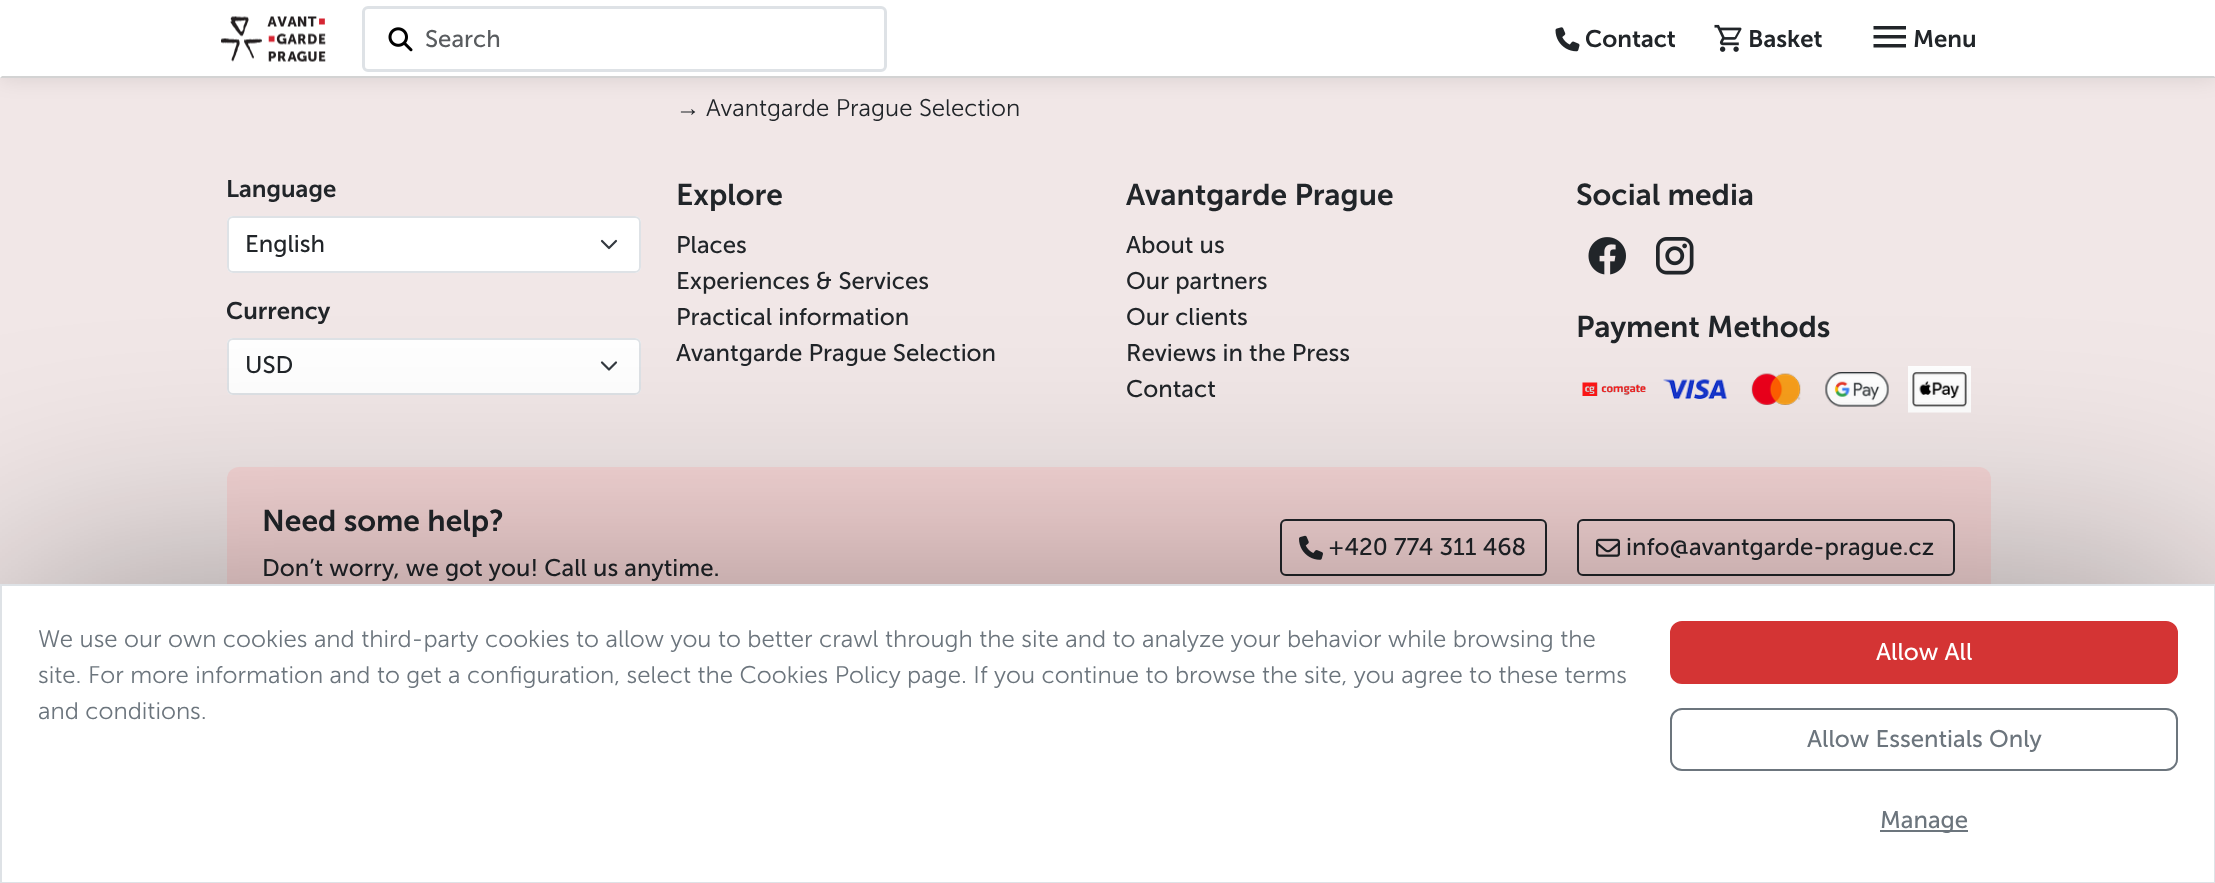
<svg xmlns="http://www.w3.org/2000/svg" width="2215" height="883" viewBox="0 0 2215 883">
  <style>
    .t1 { font: 24px Museo Sans; fill: #595c5f; }
    .t2 { font: 600 24px Museo Sans; fill: #212529; }
    .t3 { font: 24px Liberation Sans; fill: #212529; }
    .t4 { font: 300 24px Museo Sans; fill: #212529; }
    .t5 { font: 24px Museo Sans; fill: #212529; }
    .t6 { font: 600 30px Museo Sans; fill: #212529; }
    .t7 { font: 300 24px Museo Sans; fill: #6c757d; }
    .t8 { font: 24px Museo Sans; fill: #fff; }
    .t9 { font: 24px Museo Sans; fill: #6c757d; }
  </style>
  <rect width="100%" height="100%" fill="#f1e7e7"/>
  <rect x="0" y="0" width="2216" height="78" fill="#0000001a" filter="blur(11px)"/>
  <rect x="0" y="0" width="2215" height="78" fill="#fff"/>
  <path d="M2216 78H0L2 76H2214Z" fill="#d3d3d3"/>
  <image x="221" y="16" width="105" height="46" href="images/1.png"/>
  <rect x="363.5" y="7.5" width="522" height="63" rx="4.5" fill="none" stroke="#dee2e6" stroke-width="3"/>
  <image x="388" y="27" width="25" height="25" href="images/2.png"/>
  <text x="425" y="47" class="t1">Search</text>
  <image x="1555" y="27" width="25" height="25" href="images/3.png"/>
  <text x="1585" y="47" class="t2">Contact</text>
  <image x="1714" y="24" width="28" height="28" href="images/4.png"/>
  <text x="1748" y="47" class="t2">Basket</text>
  <path d="M1873.5 26H1906V29.5H1873.5ZM1873.5 35H1906V38.5H1873.5ZM1873.5 44H1906V47.5H1873.5Z" fill="#212529"/>
  <text x="1913" y="47" class="t2">Menu</text>
  <text x="676" y="116" class="t3">→</text>
  <text x="706" y="116" class="t4">Avantgarde Prague Selection</text>
  <text x="226" y="197" class="t2">Language</text>
  <rect x="227" y="216" width="414" height="57" rx="6" fill="#fff"/>
  <path d="M602 241L609 248L616 241" fill="none" stroke="#343a40" stroke-width="2.2" stroke-linecap="round" stroke-linejoin="round"/>
  <rect x="228" y="217" width="412" height="55" rx="5" fill="none" stroke="#dee2e6" stroke-width="2"/>
  <text x="245" y="252" class="t5">English</text>
  <text x="226" y="319" class="t2">Currency</text>
  <rect x="227" y="338" width="414" height="57" rx="6" fill="#fff"/>
  <path d="M602 362.5L609 369.5L616 362.5" fill="none" stroke="#343a40" stroke-width="2.2" stroke-linecap="round" stroke-linejoin="round"/>
  <rect x="228" y="339" width="412" height="55" rx="5" fill="none" stroke="#dee2e6" stroke-width="2"/>
  <text x="245" y="373" class="t5">USD</text>
  <text x="676" y="205" class="t6">Explore</text>
  <text x="676" y="253" class="t5">Places</text>
  <text x="676" y="289" class="t5">Experiences &amp; Services</text>
  <text x="676" y="325" class="t5">Practical information</text>
  <text x="676" y="361" class="t5">Avantgarde Prague Selection</text>
  <text x="1126" y="205" class="t6">Avantgarde Prague</text>
  <text x="1126" y="253" class="t5">About us</text>
  <text x="1126" y="289" class="t5">Our partners</text>
  <text x="1126" y="325" class="t5">Our clients</text>
  <text x="1126" y="361" class="t5">Reviews in the Press</text>
  <text x="1126" y="397" class="t5">Contact</text>
  <text x="1576" y="205" class="t6">Social media</text>
  <image x="1588" y="237" width="38" height="38" href="images/5.png"/>
  <image x="1656" y="237" width="38" height="38" href="images/6.png"/>
  <text x="1576" y="337" class="t6">Payment Methods</text>
  <image x="1582" y="382" width="64" height="14" href="images/7.png"/>
  <image x="1663" y="379" width="64" height="20" href="images/8.png"/>
  <image x="1751" y="373" width="50" height="32" href="images/9.png"/>
  <image x="1825" y="372" width="64" height="35" href="images/10.png"/>
  <image x="1908" y="366" width="63" height="47" href="images/11.png"/>
  <rect x="227" y="467" width="1764" height="162" rx="12" fill="#f6d6d6"/>
  <text x="262" y="531" class="t6">Need some help?</text>
  <text x="262" y="576" class="t5">Don’t worry, we got you! Call us anytime.</text>
  <rect x="1281" y="520" width="265" height="55" rx="5" fill="none" stroke="#212529" stroke-width="2"/>
  <image x="1299" y="535" width="24" height="25" href="images/12.png"/>
  <text x="1328" y="555" class="t5">+420 774 311 468</text>
  <rect x="1578" y="520" width="376" height="55" rx="5" fill="none" stroke="#212529" stroke-width="2"/>
  <image x="1596" y="538" width="24" height="19" href="images/13.png"/>
  <text x="1626" y="555" class="t5">info@avantgarde-prague.cz</text>
  <rect x="0" y="584" width="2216" height="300" fill="#0000005e" filter="blur(120px)"/>
  <rect x="1" y="585" width="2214" height="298" fill="#fff" stroke="#dee2e6" stroke-width="2"/>
  <text x="38" y="647" class="t7">We use our own cookies and third-party cookies to allow you to better crawl through the site and to analyze your behavior while browsing the</text>
  <text x="38" y="683" class="t7">site. For more information and to get a configuration, select the Cookies Policy page. If you continue to browse the site, you agree to these terms</text>
  <text x="38" y="719" class="t7">and conditions.</text>
  <rect x="1671" y="622" width="506" height="61" rx="11" fill="#d43434" stroke="#d43434" stroke-width="2"/>
  <text x="1876" y="660" class="t8">Allow All</text>
  <rect x="1671" y="709" width="506" height="61" rx="11" fill="none" stroke="#6c757d" stroke-width="2"/>
  <text x="1807" y="747" class="t9">Allow Essentials Only</text>
  <rect x="1880" y="830" width="88" height="2" fill="#6c757d"/>
  <text x="1880" y="828" class="t9">Manage</text>
</svg>
